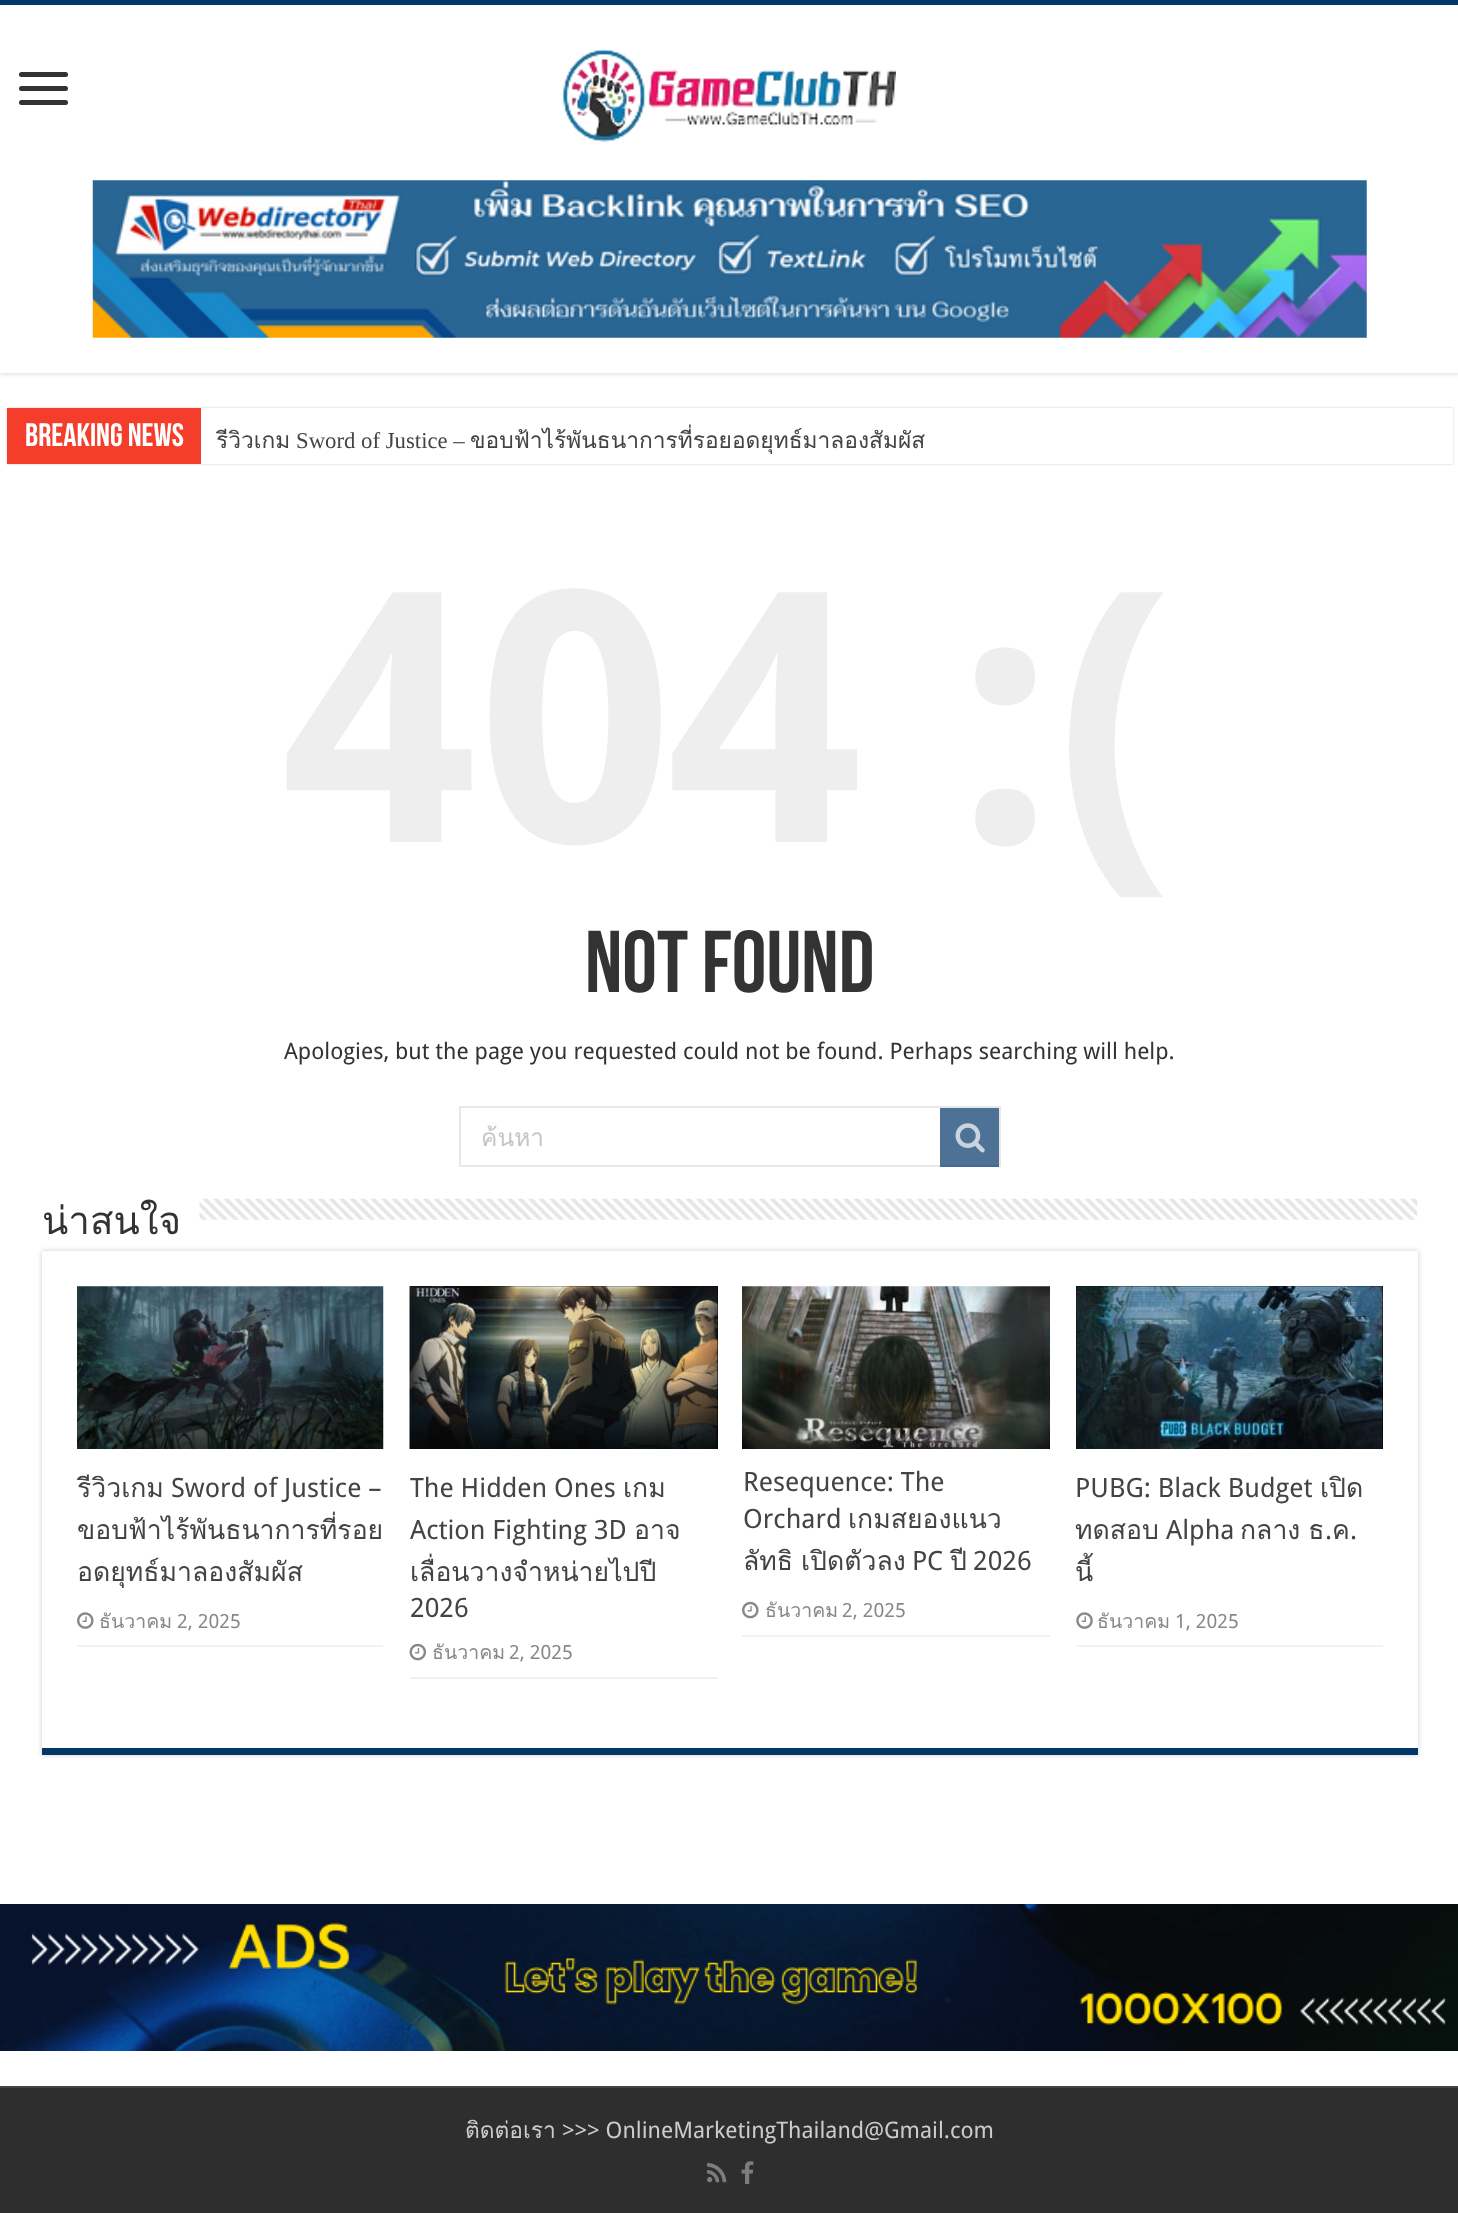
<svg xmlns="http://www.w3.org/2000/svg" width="1458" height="2213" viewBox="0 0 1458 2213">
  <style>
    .t1 { font: bold 32.5px Bebas Neue; fill: #fff; }
    .t2 { font: 22.75px Loma; fill: #444; }
    .t3 { font: 22.75px Liberation Serif; fill: #444; }
    .t4 { font: bold 350px Droid Sans; fill: #eee; }
    .t5 { font: bold 87.5px Bebas Neue; fill: #333; }
    .t6 { font: 22.75px Droid Sans; fill: #333; }
    .t7 { font: 24.5px Loma; fill: #c5c5c5; }
    .t8 { font: 38.5px Loma; fill: #333; }
    .t9 { font: 26.6px Loma; fill: #444; }
    .t10 { font: 26.6px Droid Sans; fill: #444; }
    .t11 { font: 19.5px Loma; fill: #888; }
    .t12 { font: 19.5px Droid Sans; fill: #888; }
    .t13 { font: 22.75px Loma; fill: #ccc; }
    .t14 { font: 22.75px Droid Sans; fill: #ccc; }
  </style>
  <defs>
    <clipPath id="clip1"><rect x="481" y="1118" width="497" height="39"/></clipPath>
    <clipPath id="clip2"><rect x="42" y="1185" width="1376" height="66"/></clipPath>
  </defs>
  <rect width="100%" height="100%" fill="#fff"/>
  <rect x="0" y="0" width="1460" height="373" fill="#cacaca" filter="blur(2.5px)"/>
  <rect x="0" y="5" width="1458" height="368" fill="#fff"/>
  <rect x="0" y="0" width="1458" height="5" fill="#033669"/>
  <rect x="19" y="72" width="49" height="5" rx="2.5" fill="#333"/>
  <rect x="19" y="86" width="49" height="5" rx="2.5" fill="#333"/>
  <rect x="19" y="100" width="49" height="5" rx="2.5" fill="#333"/>
  <image x="563" y="48" width="333" height="95" href="images/1.png"/>
  <image x="92" y="180" width="1275" height="158" href="images/2.png"/>
  <rect x="7" y="408" width="1446" height="56" fill="#cacaca" filter="blur(1px)"/>
  <rect x="201" y="408" width="1252" height="56" fill="#fff"/>
  <rect x="7" y="408" width="194" height="56" fill="#f43d2a"/>
  <text x="25" y="446" class="t1">Breaking News</text>
  <text x="216" y="448" class="t2">รีวิวเกม</text>
  <text x="296" y="448" class="t3">Sword of Justice –</text>
  <text x="470" y="448" class="t2">ขอบฟ้าไร้พันธนาการที่รอยอดยุทธ์มาลองสัมผัส</text>
  <text x="286" y="842" class="t4">404 :(</text>
  <text x="585" y="992" class="t5">Not Found</text>
  <text x="284" y="1059" class="t6">Apologies, but the page you requested could not be found. Perhaps searching will help.</text>
  <rect x="460" y="1107" width="540" height="59" fill="none" stroke="#e8e8e8" stroke-width="2"/>
  <g clip-path="url(#clip1)">
    <text x="481" y="1146" class="t7">ค้นหา</text>
  </g>
  <rect x="940" y="1108" width="59" height="59" fill="#033669b3"/>
  <image x="955" y="1123" width="30" height="30" href="images/3.png"/>
  <g clip-path="url(#clip2)">
    <text x="42" y="1234" class="t8">น่าสนใจ</text>
  </g>
  <image x="199" y="1198" width="1219" height="22" href="images/4.png"/>
  <rect x="42" y="1251" width="1376" height="504" fill="#cacaca" filter="blur(2.5px)"/>
  <rect x="42" y="1251" width="1376" height="497" fill="#fff"/>
  <rect x="42" y="1748" width="1376" height="7" fill="#033669"/>
  <image x="77" y="1286" width="307" height="163" href="images/5.png"/>
  <text x="77" y="1497" class="t9">รีวิวเกม</text>
  <text x="171" y="1497" class="t10">Sword of Justice –</text>
  <text x="77" y="1539" class="t9">ขอบฟ้าไร้พันธนาการที่รอย</text>
  <text x="77" y="1581" class="t9">อดยุทธ์มาลองสัมผัส</text>
  <rect x="77" y="1645" width="306" height="2" fill="#f2f2f2"/>
  <image x="77" y="1612" width="17" height="17" href="images/6.png"/>
  <text x="99" y="1628" class="t11">ธันวาคม</text>
  <text x="177" y="1628" class="t12">2, 2025</text>
  <rect x="410" y="1286" width="308" height="163" fill="#000"/>
  <image x="409" y="1286" width="309" height="163" href="images/7.png"/>
  <text x="410" y="1497" class="t10">The Hidden Ones</text>
  <text x="623" y="1497" class="t9">เกม</text>
  <text x="410" y="1539" class="t10">Action Fighting 3D</text>
  <text x="634" y="1539" class="t9">อาจ</text>
  <text x="410" y="1581" class="t9">เลื่อนวางจำหน่ายไปปี</text>
  <text x="410" y="1617" class="t10">2026</text>
  <rect x="410" y="1677" width="308" height="2" fill="#f2f2f2"/>
  <image x="409" y="1643" width="17" height="18" href="images/8.png"/>
  <text x="432" y="1659" class="t11">ธันวาคม</text>
  <text x="509" y="1659" class="t12">2, 2025</text>
  <image x="742" y="1286" width="308" height="163" href="images/9.png"/>
  <text x="743" y="1491" class="t10">Resequence: The</text>
  <text x="743" y="1528" class="t10">Orchard</text>
  <text x="848" y="1528" class="t9">เกมสยองแนว</text>
  <text x="743" y="1570" word-spacing="-1" class="t9">ลัทธิ เปิดตัวลง</text>
  <text x="912" y="1570" class="t10">PC</text>
  <text x="950" y="1570" class="t9">ปี</text>
  <text x="973" y="1570" class="t10">2026</text>
  <rect x="742" y="1635" width="308" height="2" fill="#f2f2f2"/>
  <image x="742" y="1601" width="17" height="18" href="images/10.png"/>
  <text x="765" y="1617" class="t11">ธันวาคม</text>
  <text x="842" y="1617" class="t12">2, 2025</text>
  <rect x="1076" y="1286" width="307" height="163" fill="#000"/>
  <image x="1076" y="1286" width="307" height="163" href="images/11.png"/>
  <text x="1075" y="1497" class="t10">PUBG: Black Budget</text>
  <text x="1320" y="1497" class="t9">เปิด</text>
  <text x="1075" y="1539" class="t9">ทดสอบ</text>
  <text x="1166" y="1539" class="t10">Alpha</text>
  <text x="1240" y="1539" word-spacing="-1" class="t9">กลาง ธ</text>
  <text x="1325" y="1539" class="t10">.</text>
  <text x="1332" y="1539" class="t9">ค</text>
  <text x="1350" y="1539" class="t10">.</text>
  <text x="1075" y="1581" class="t9">นี้</text>
  <rect x="1076" y="1645" width="307" height="2" fill="#f2f2f2"/>
  <image x="1076" y="1612" width="17" height="17" href="images/12.png"/>
  <text x="1097" y="1628" class="t11">ธันวาคม</text>
  <text x="1175" y="1628" class="t12">1, 2025</text>
  <image x="0" y="1904" width="1458" height="147" href="images/13.png"/>
  <rect x="0" y="2088" width="1458" height="125" fill="#2e2e2e"/>
  <rect x="0" y="2086" width="1458" height="2" fill="#444"/>
  <text x="465" y="2138" class="t13">ติดต่อเรา</text>
  <text x="562" y="2138" class="t14">&gt;&gt;&gt; OnlineMarketingThailand@Gmail.com</text>
  <image x="707" y="2163" width="20" height="20" href="images/14.png"/>
  <image x="741" y="2161" width="13" height="23" href="images/15.png"/>
</svg>
